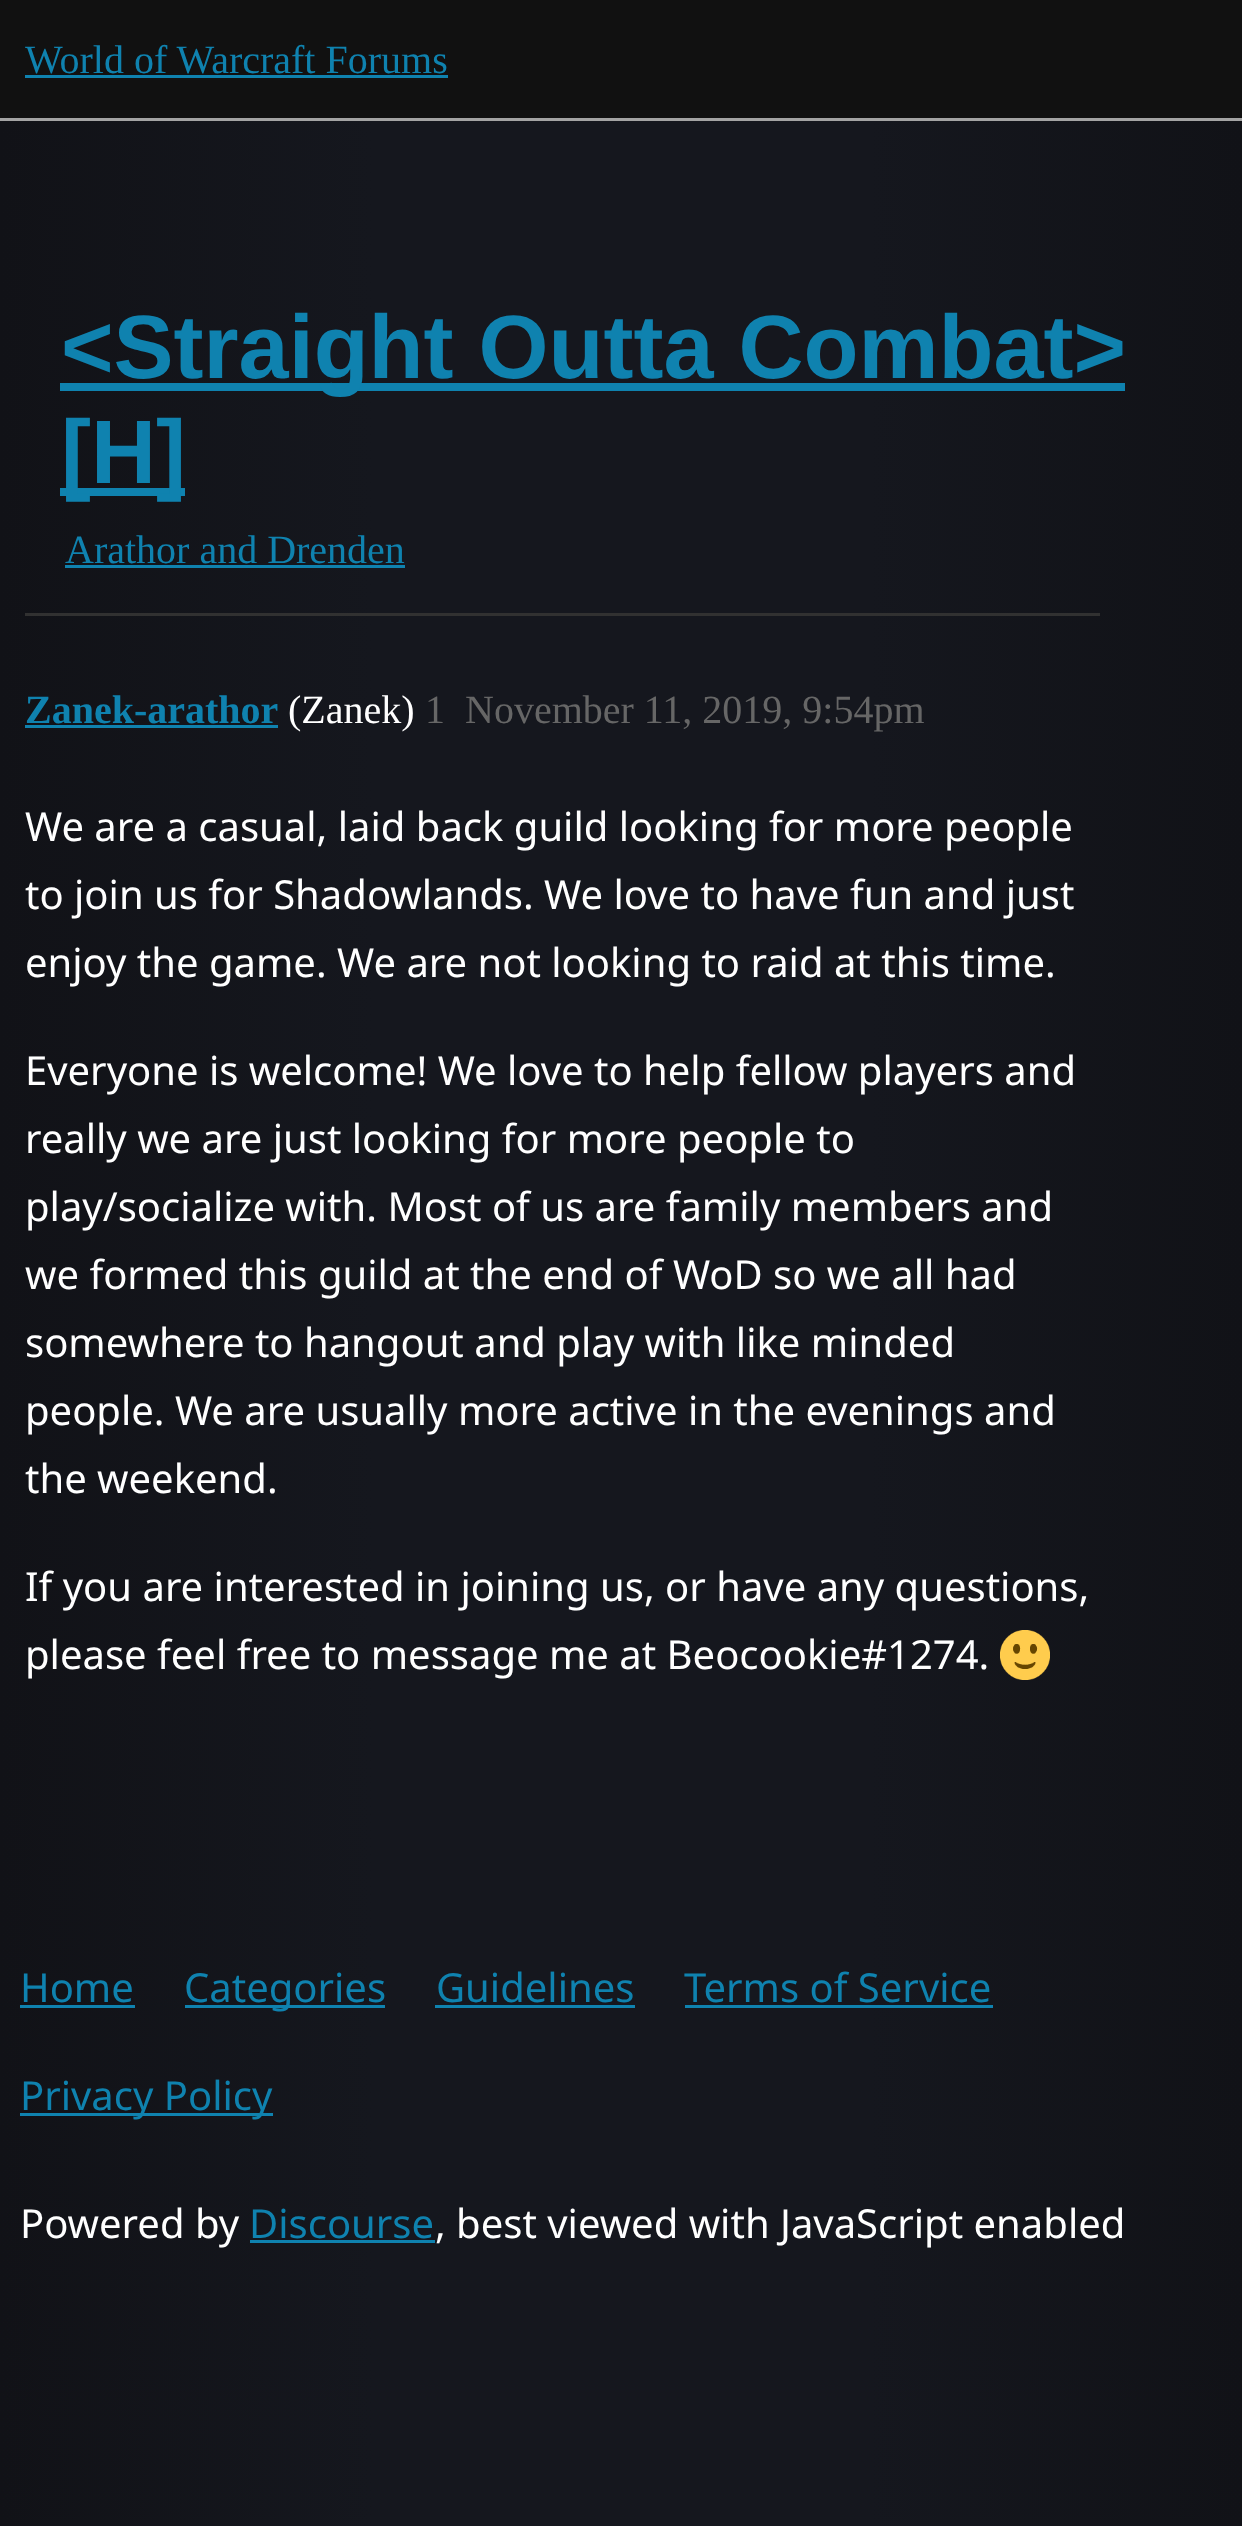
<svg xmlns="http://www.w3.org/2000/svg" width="1242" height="2526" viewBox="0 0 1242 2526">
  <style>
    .t1 { font: 40px Liberation Serif; fill: #0f82af; }
    .t2 { font: bold 90px Liberation Sans; fill: #0f82af; }
    .t3 { font: bold 40px Liberation Serif; fill: #0f82af; }
    .t4 { font: 40px Liberation Serif; fill: #fff; }
    .t5 { font: 40px Liberation Serif; fill: #666; }
    .t6 { font: 40px Noto Sans; fill: #fff; }
    .t7 { font: 40px Noto Sans; fill: #0f82af; }
  </style>
  <defs>
    <linearGradient id="g1" gradientUnits="userSpaceOnUse" x1="0" y1="1264" x2="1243" y2="1264"><stop offset="0" stop-color="#111217"/><stop offset="0.3" stop-color="#15171e"/><stop offset="0.7" stop-color="#15171e"/><stop offset="1" stop-color="#111217"/></linearGradient>
  </defs>
  <rect width="100%" height="100%" fill="#fff"/>
  <rect x="0" y="121" width="1242" height="2405" fill="url(#g1)"/>
  <rect x="0" y="0" width="1242" height="118" fill="#111"/>
  <rect x="0" y="118" width="1242" height="3" fill="#a4a4a4"/>
  <text x="25" y="73" class="t1">World of Warcraft Forums</text>
  <rect x="25" y="75" width="423" height="3" fill="#0f82af"/>
  <rect x="60" y="383" width="1065" height="8" fill="#0f82af"/>
  <text x="61" y="378" class="t2">&lt;Straight Outta Combat&gt;</text>
  <rect x="60" y="488" width="125" height="8" fill="#0f82af"/>
  <text x="61" y="483" class="t2">[H]</text>
  <text x="65" y="563" class="t1">Arathor and Drenden</text>
  <rect x="65" y="565" width="340" height="3" fill="#0f82af"/>
  <rect x="25" y="613" width="1075" height="3" fill="#313131"/>
  <text x="25" y="723" class="t3">Zanek-arathor</text>
  <rect x="25" y="725" width="253" height="3" fill="#0f82af"/>
  <text x="288" y="723" class="t4">(Zanek)</text>
  <text x="425" y="723" class="t5">1</text>
  <text x="465" y="723" class="t5">November 11, 2019, 9:54pm</text>
  <text x="25" y="841" class="t6">We are a casual, laid back guild looking for more people</text>
  <text x="25" y="909" class="t6">to join us for Shadowlands. We love to have fun and just</text>
  <text x="25" y="977" class="t6">enjoy the game. We are not looking to raid at this time.</text>
  <text x="25" y="1085" class="t6">Everyone is welcome! We love to help fellow players and</text>
  <text x="25" y="1153" class="t6">really we are just looking for more people to</text>
  <text x="25" y="1221" class="t6">play/socialize with. Most of us are family members and</text>
  <text x="25" y="1289" class="t6">we formed this guild at the end of WoD so we all had</text>
  <text x="25" y="1357" class="t6">somewhere to hangout and play with like minded</text>
  <text x="25" y="1425" class="t6">people. We are usually more active in the evenings and</text>
  <text x="25" y="1493" class="t6">the weekend.</text>
  <text x="25" y="1601" class="t6">If you are interested in joining us, or have any questions,</text>
  <text x="25" y="1669" class="t6">please feel free to message me at Beocookie#1274.</text>
  <image x="1000" y="1630" width="50" height="50" href="images/1.png"/>
  <text x="20" y="2002" class="t7">Home</text>
  <rect x="20" y="2005" width="115" height="3" fill="#0f82af"/>
  <rect x="185" y="2005" width="200" height="3" fill="#0f82af"/>
  <text x="184" y="2002" class="t7">Categories</text>
  <text x="436" y="2002" class="t7">Guidelines</text>
  <rect x="435" y="2005" width="200" height="3" fill="#0f82af"/>
  <text x="684" y="2002" class="t7">Terms of Service</text>
  <rect x="685" y="2005" width="308" height="3" fill="#0f82af"/>
  <rect x="20" y="2113" width="253" height="3" fill="#0f82af"/>
  <text x="20" y="2110" class="t7">Privacy Policy</text>
  <text x="20" y="2238" class="t6">Powered by</text>
  <text x="249" y="2238" class="t7">Discourse</text>
  <rect x="250" y="2240" width="185" height="3" fill="#0f82af"/>
  <text x="435" y="2238" class="t6">, best viewed with JavaScript enabled</text>
</svg>
